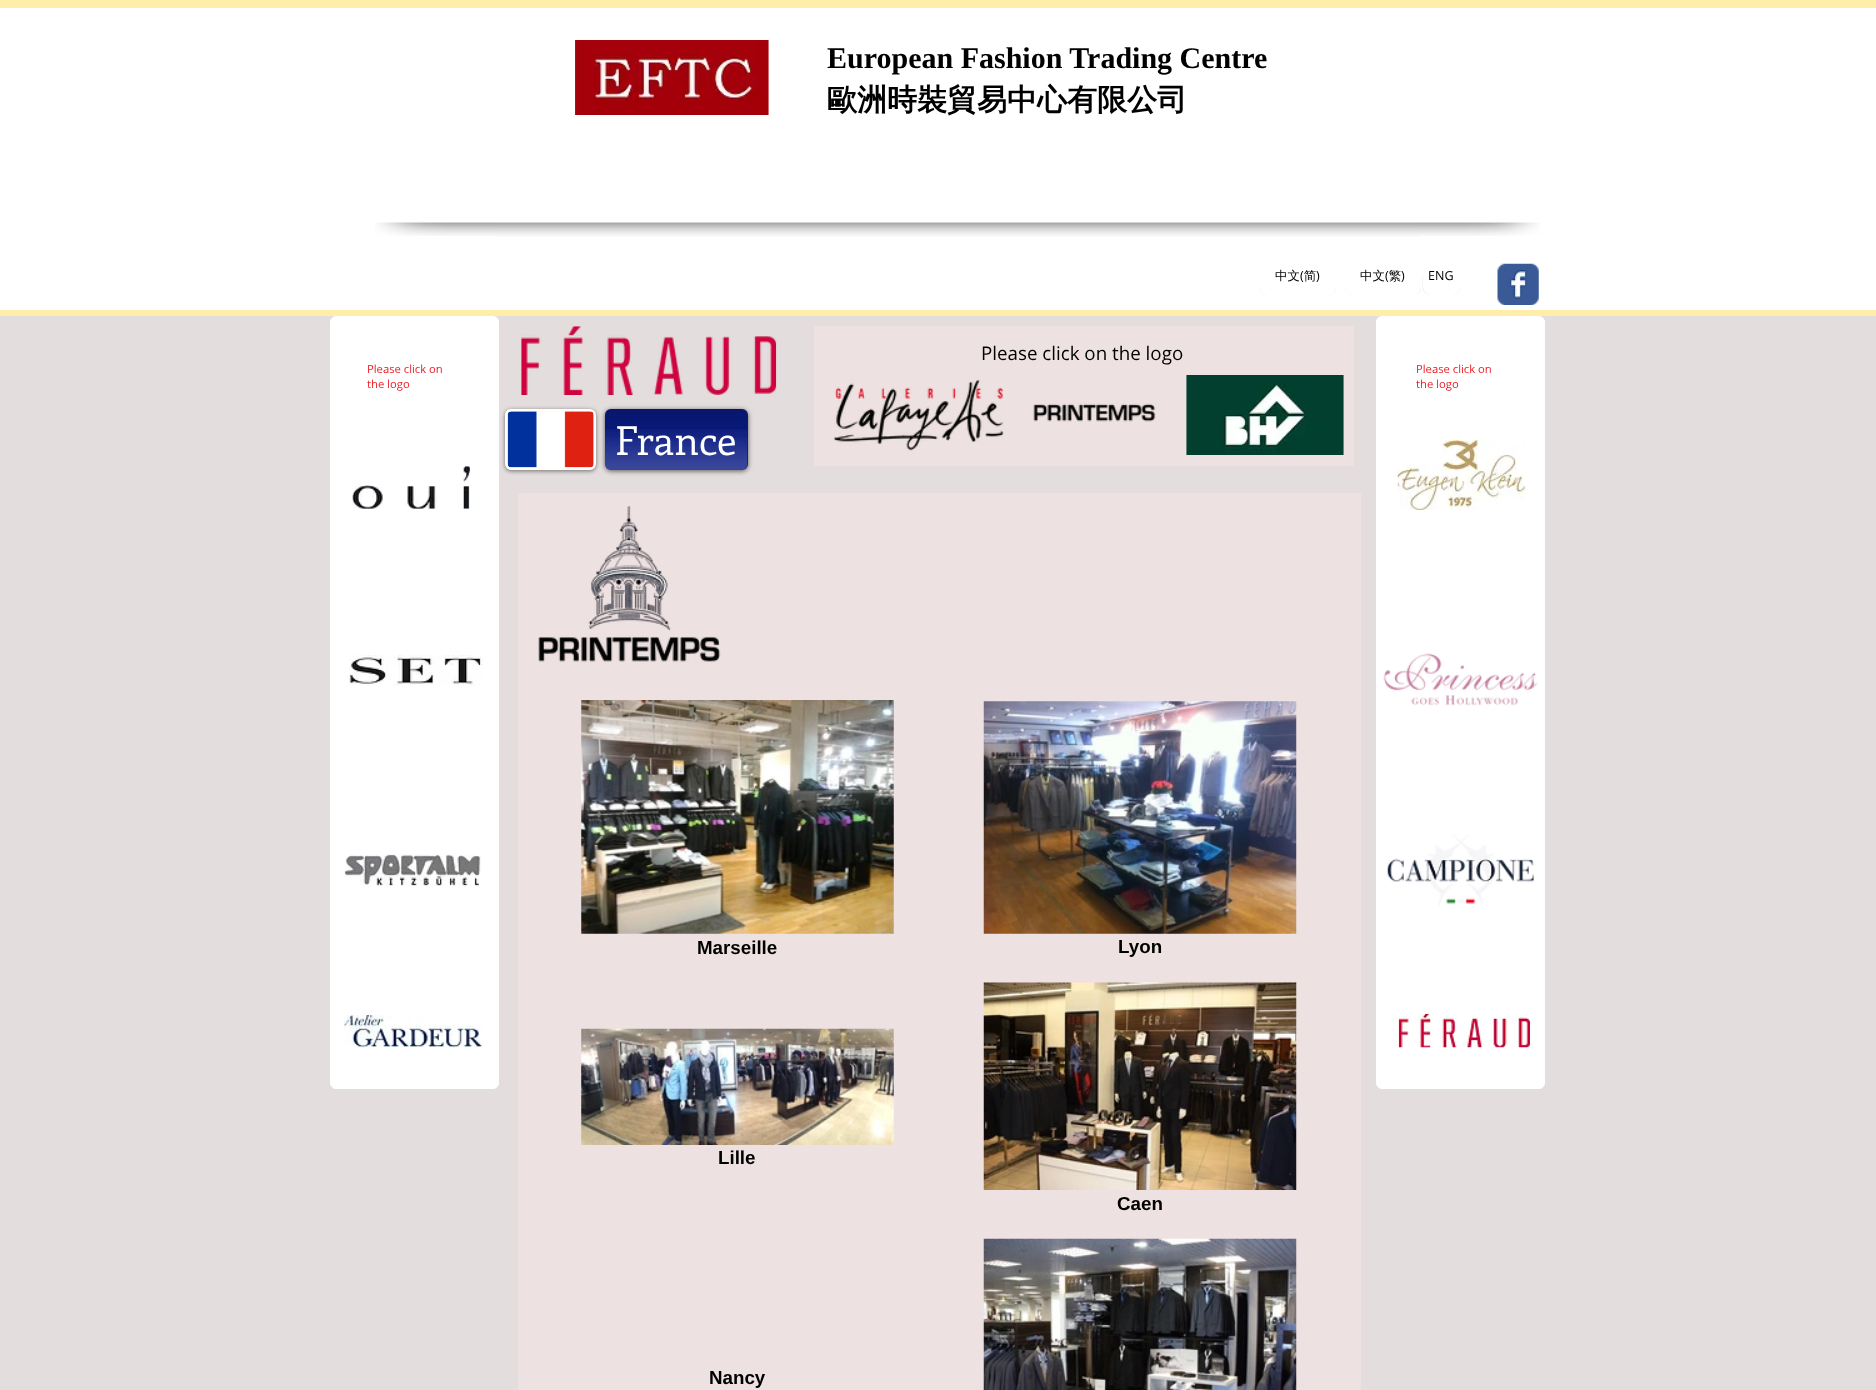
<svg xmlns="http://www.w3.org/2000/svg" width="1876" height="1390" viewBox="0 0 1876 1390">
  <style>
    .t1 { font: bold 30px Liberation Serif; fill: #000; }
    .t2 { font: bold 30px WenQuanYi Zen Hei; fill: #000; }
    .t3 { font: 500 12.5px WenQuanYi Zen Hei; fill: #000; }
    .t4 { font: 12.5px Open Sans; fill: #000; }
    .t5 { font: 18.75px Open Sans; fill: #000; }
    .t6 { font: 11.25px Open Sans; fill: #ed1c24; }
    .t7 { font: 40px Enriqueta; fill: #fff; }
    .t8 { font: bold 18.75px Liberation Sans; fill: #000; }
  </style>
  <rect width="100%" height="100%" fill="#e3dddd"/>
  <rect x="0" y="8" width="1876" height="302" fill="#fff"/>
  <rect x="0" y="0" width="1876" height="8" fill="#fea"/>
  <rect x="0" y="310" width="1876" height="6" fill="#fea"/>
  <image x="575" y="40" width="194" height="75" href="images/1.png"/>
  <text x="827" y="68" class="t1">European Fashion Trading Centre</text>
  <text x="827" y="110" class="t2">歐洲時裝貿易中心有限公司</text>
  <image x="375" y="222" width="120" height="14" href="images/2.png"/>
  <image x="495" y="222" width="925" height="15" href="images/3.png"/>
  <image x="1420" y="222" width="120" height="14" href="images/4.png"/>
  <image x="1260" y="287" width="76" height="8" href="images/5.png"/>
  <rect x="1260" y="258" width="76" height="37" rx="8" fill="#fff"/>
  <text x="1275" y="280" class="t3">中文 简</text>
  <text x="1300" y="280" class="t4">(</text>
  <text x="1316" y="280" class="t4">)</text>
  <image x="1345" y="287" width="76" height="8" href="images/6.png"/>
  <rect x="1345" y="258" width="76" height="37" rx="8" fill="#fff"/>
  <text x="1360" y="280" class="t3">中文 繁</text>
  <text x="1385" y="280" class="t4">(</text>
  <text x="1401" y="280" class="t4">)</text>
  <image x="1422" y="276" width="38" height="19" href="images/7.png"/>
  <rect x="1423" y="258" width="37" height="37" rx="8" fill="#fff"/>
  <text x="1428" y="280" class="t4">ENG</text>
  <image x="1497" y="263" width="42" height="42" href="images/8.png"/>
  <image x="521" y="326" width="256" height="69" href="images/9.png"/>
  <rect x="814" y="326" width="540" height="140" fill="#eee1e1"/>
  <text x="981" y="360" class="t5">Please click on the logo</text>
  <rect x="330.5" y="316.5" width="168" height="772" rx="5.5" fill="#fff" stroke="#fff"/>
  <text x="367" y="373" class="t6">Please click on</text>
  <text x="367" y="388" class="t6">the logo</text>
  <image x="352" y="466" width="118" height="43" href="images/10.png"/>
  <image x="349" y="655" width="135" height="31" href="images/11.png"/>
  <image x="344" y="854" width="137" height="32" href="images/12.png"/>
  <image x="344" y="1015" width="138" height="33" href="images/13.png"/>
  <rect x="505" y="410" width="91" height="61" rx="6" fill="#00000080" filter="blur(2px)"/>
  <rect x="506.5" y="410.5" width="88" height="58" rx="4.5" fill="none" stroke="#fff" stroke-width="3"/>
  <image x="507" y="411" width="87" height="57" href="images/14.png"/>
  <image x="833" y="379" width="171" height="72" href="images/15.png"/>
  <image x="1033" y="403" width="123" height="19" href="images/16.png"/>
  <image x="1186" y="375" width="158" height="80" href="images/17.png"/>
  <rect x="1376.5" y="316.5" width="168" height="772" rx="5.5" fill="#fff" stroke="#fff"/>
  <text x="1416" y="373" class="t6">Please click on</text>
  <text x="1416" y="388" class="t6">the logo</text>
  <image x="1397" y="440" width="128" height="70" href="images/18.png"/>
  <image x="1383" y="653" width="155" height="53" href="images/19.png"/>
  <image x="1387" y="834" width="147" height="73" href="images/20.png"/>
  <image x="1398" y="1013" width="132" height="35" href="images/21.png"/>
  <rect x="605" y="410" width="143" height="61" rx="6" fill="#00000099" filter="blur(2.5px)"/>
  <rect x="605" y="409" width="143" height="61" rx="6" fill="#0a1b83"/>
  <image x="605" y="409" width="143" height="30" href="images/22.png"/>
  <image x="605" y="429" width="143" height="41" href="images/23.png"/>
  <text x="615" y="455" class="t7">France</text>
  <rect x="518" y="493" width="843" height="897" fill="#eee1e1"/>
  <image x="538" y="506" width="183" height="156" href="images/24.png"/>
  <image x="581" y="700" width="313" height="234" href="images/25.png"/>
  <text x="697" y="954" class="t8">Marseille</text>
  <image x="983" y="701" width="314" height="233" href="images/26.png"/>
  <text x="1118" y="953" class="t8">Lyon</text>
  <image x="581" y="1028" width="313" height="117" href="images/27.png"/>
  <text x="718" y="1164" class="t8">Lille</text>
  <image x="983" y="982" width="314" height="208" href="images/28.png"/>
  <text x="1117" y="1210" class="t8">Caen</text>
  <text x="709" y="1384" class="t8">Nancy</text>
  <image x="983" y="1238" width="314" height="152" href="images/29.png"/>
</svg>
